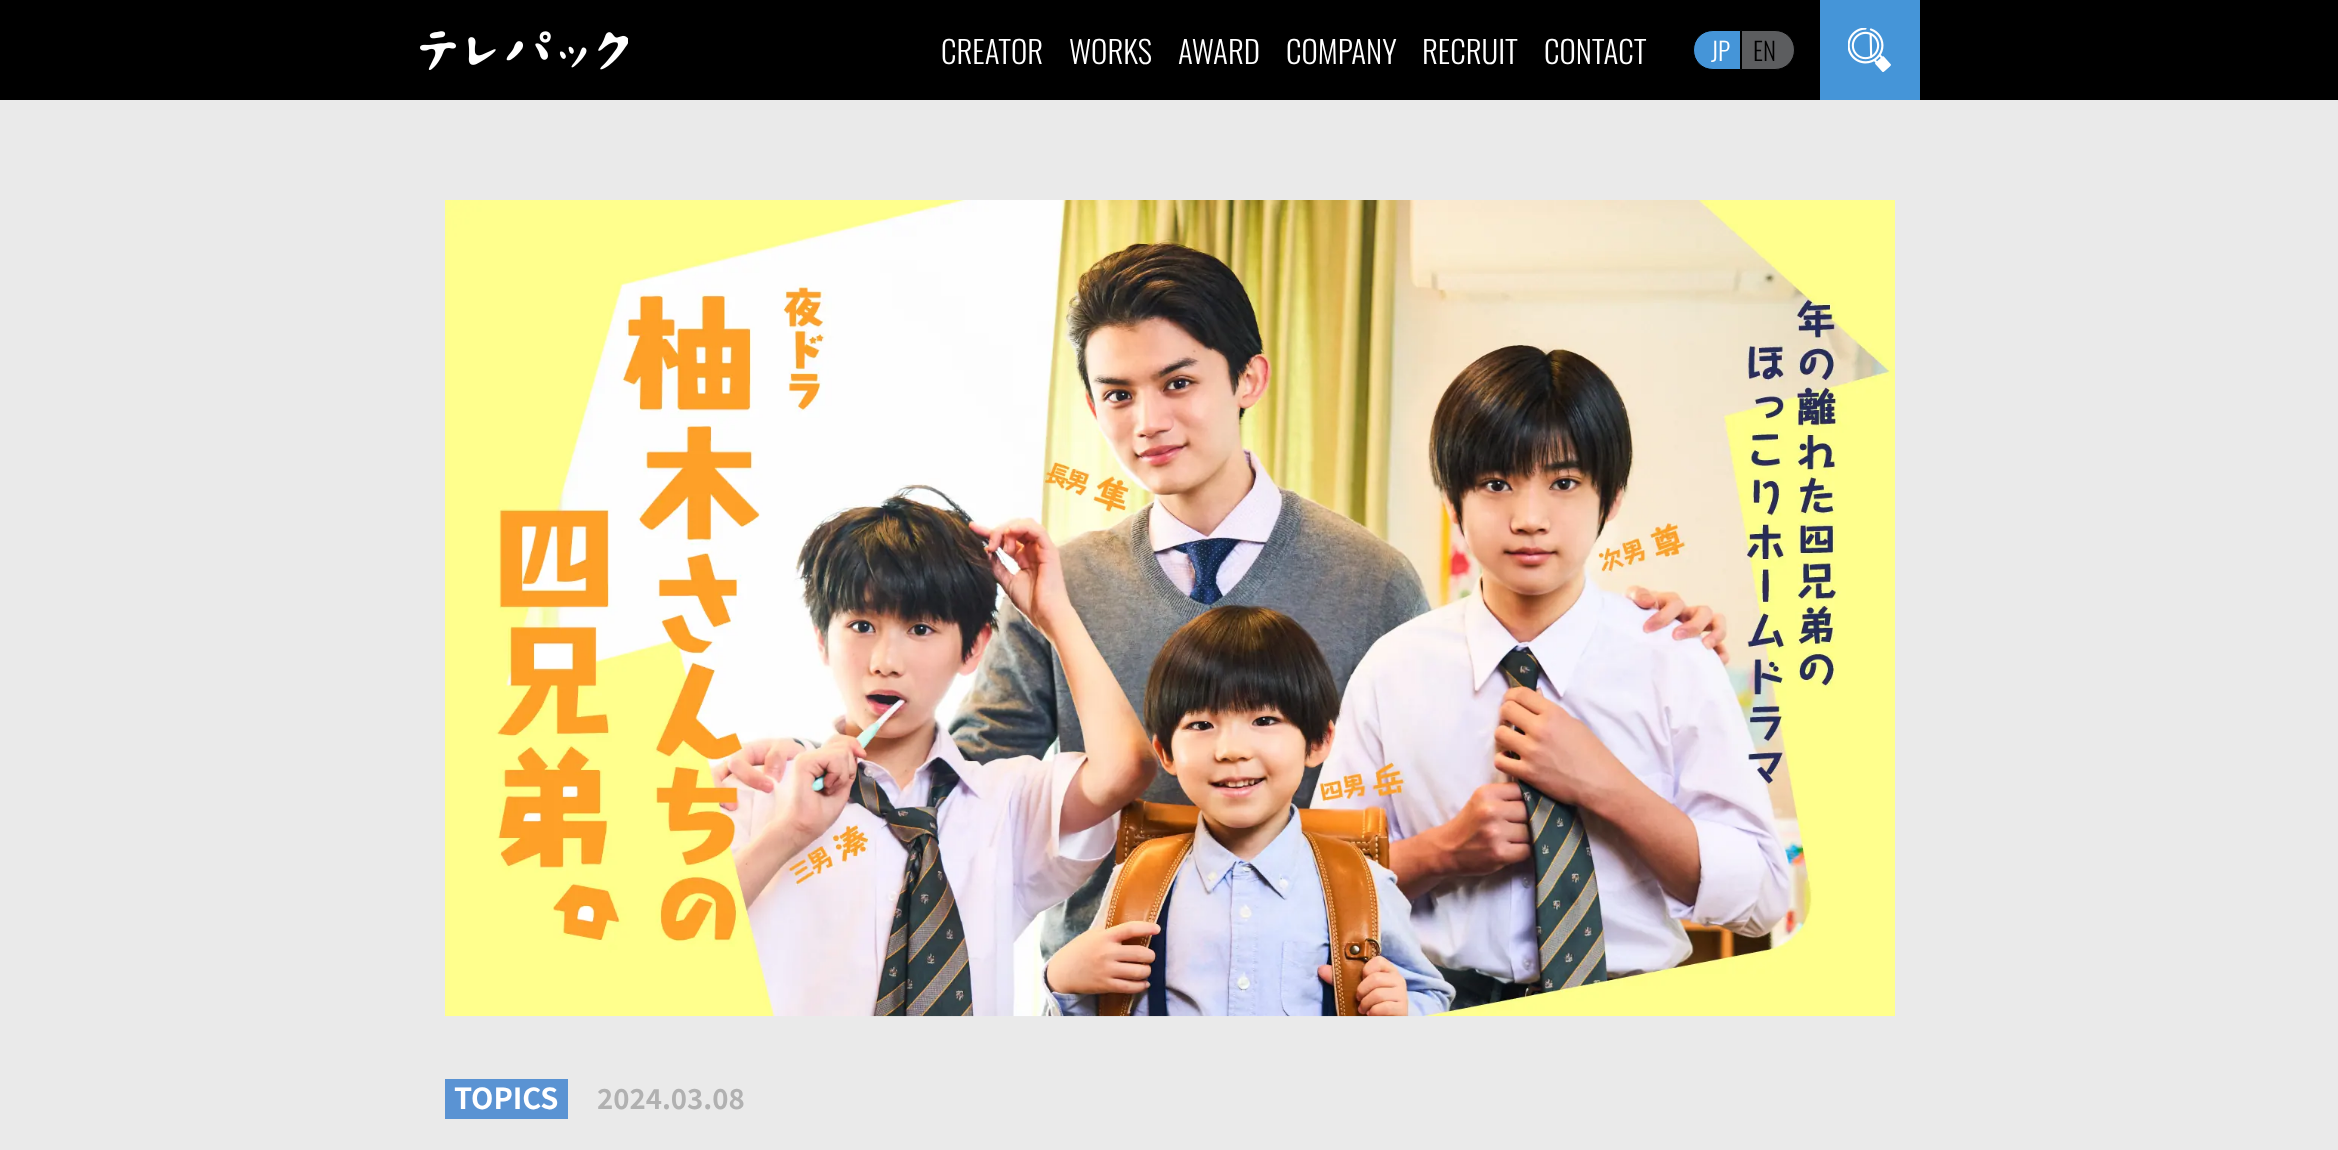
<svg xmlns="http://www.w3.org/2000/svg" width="2338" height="1150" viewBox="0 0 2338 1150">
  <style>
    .t1 { font: 300 31px Oswald; fill: #fff; }
    .t2 { font: 300 25px Oswald; fill: #fff; }
    .t3 { font: 300 25px Oswald; fill: #000; }
    .t4 { font: bold 29px Noto Sans JP; fill: #fff; }
    .t5 { font: bold 27.5px Noto Sans JP; fill: #b1b1b1; }
  </style>
  <rect width="100%" height="100%" fill="#eaeaea"/>
  <rect x="0" y="0" width="2338" height="100" fill="#000"/>
  <image x="420" y="31" width="208" height="39" href="images/1.png"/>
  <text x="941" y="64" class="t1">CREATOR</text>
  <text x="1069" y="64" class="t1">WORKS</text>
  <text x="1178" y="64" class="t1">AWARD</text>
  <text x="1286" y="64" class="t1">COMPANY</text>
  <text x="1422" y="64" class="t1">RECRUIT</text>
  <text x="1544" y="64" class="t1">CONTACT</text>
  <path d="M1713 30.5H1740.5V69.5H1713C1702 69.5 1693.5 61 1693.5 50C1693.5 39 1702 30.5 1713 30.5Z" fill="#4595d8" stroke="#000"/>
  <text x="1711" y="61" class="t2">JP</text>
  <path d="M1741.5 30.5H1775C1786 30.5 1794.5 39 1794.5 50C1794.5 61 1786 69.5 1775 69.5H1741.5Z" fill="#5c5d5f" stroke="#000"/>
  <text x="1753" y="61" class="t3">EN</text>
  <rect x="1820" y="0" width="100" height="100" fill="#4595d8"/>
  <image x="1848" y="28" width="43" height="44" href="images/2.png"/>
  <image x="445" y="200" width="1450" height="817" href="images/3.png"/>
  <rect x="445" y="1079" width="123" height="40" fill="#5a93d3"/>
  <text x="454" y="1109" class="t4">TOPICS</text>
  <text x="597" y="1109" class="t5">2024.03.08</text>
</svg>
